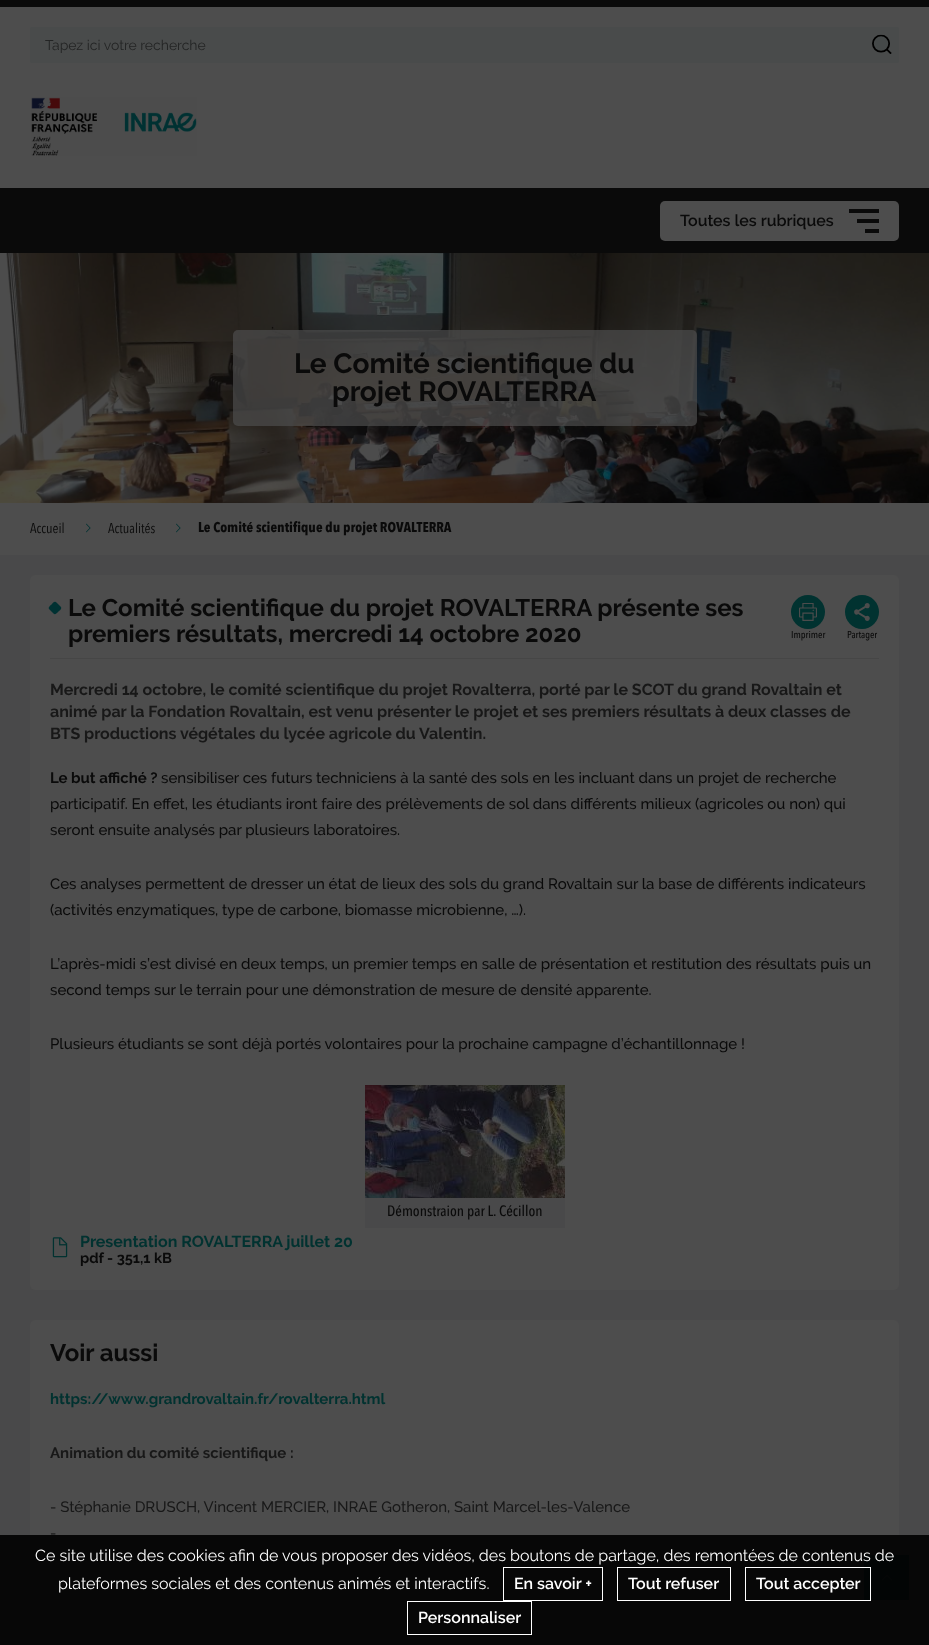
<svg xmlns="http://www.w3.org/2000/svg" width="929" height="1645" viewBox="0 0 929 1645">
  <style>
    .t1 { font: 14px Raleway; fill: #232424; }
    .t2 { font: 600 16px Raleway; fill: #0a0a0a; }
    .t3 { font: bold 28px Raleway; fill: #0a0a0a; }
    .t4 { font: 14px Avenir Next; fill: #0a0a0a; }
    .t5 { font: bold 14px Avenir Next; fill: #0a0a0a; }
    .t6 { font: bold 24px Raleway; fill: #0a0a0a; }
    .t7 { font: 500 10px Avenir Next; fill: #0a0a0a; }
    .t8 { font: bold 16px Raleway; fill: #181818; }
    .t9 { font: bold 15px Raleway; fill: #0a0a0a; }
    .t10 { font: 500 15px Raleway; fill: #0a0a0a; }
    .t11 { font: 500 15px Avenir Next; fill: #0a0a0a; }
    .t12 { font: bold 16px Raleway; fill: #013230; }
    .t13 { font: bold 14.5px Raleway; fill: #0a0a0a; }
    .t14 { font: bold 15px Raleway; fill: #013230; }
    .t15 { font: bold 15px Raleway; fill: #181818; }
    .t16 { font: 500 15px Raleway; fill: #181818; }
    .t17 { font: 16px Raleway; fill: #fff; }
    .t18 { font: 600 16px Raleway; fill: #fff; }
  </style>
  <rect width="100%" height="100%" fill="#4d4d4d"/>
  <rect x="0" y="0" width="929" height="7" fill="#0a0a0a"/>
  <rect x="30" y="27" width="869" height="36" rx="2" fill="#494b4b"/>
  <text x="45" y="50" class="t1">Tapez ici votre recherche</text>
  <image x="872" y="34" width="20" height="20" href="images/1.png"/>
  <image x="31" y="97" width="166" height="59" href="images/2.png"/>
  <rect x="0" y="188" width="929" height="65" fill="#0a0a0a"/>
  <rect x="660" y="201" width="239" height="40" rx="5" fill="#4d4d4d"/>
  <text x="680" y="226" class="t2">Toutes les rubriques</text>
  <rect x="849" y="209" width="30" height="4" fill="#0a0a0a"/>
  <rect x="857" y="219" width="22" height="4" fill="#0a0a0a"/>
  <rect x="865" y="229" width="14" height="4" fill="#0a0a0a"/>
  <image x="0" y="253" width="929" height="250" href="images/3.png"/>
  <rect x="233" y="330" width="464" height="96" rx="5" fill="#4d4d4db3"/>
  <text x="294" y="373" class="t3">Le Comité scientifique du</text>
  <text x="332" y="401" class="t3">projet ROVALTERRA</text>
  <text x="30" y="533" class="t4">Accueil</text>
  <image x="86" y="523" width="5" height="10" href="images/4.png"/>
  <text x="108" y="533" class="t4">Actualités</text>
  <image x="176" y="523" width="5" height="10" href="images/4.png"/>
  <text x="198" y="532" class="t5">Le Comité scientifique du projet ROVALTERRA</text>
  <rect x="0" y="555" width="929" height="1090" fill="#49494a"/>
  <rect x="899" y="1555" width="10" height="45" fill="#173938"/>
  <rect x="30" y="575" width="869" height="715" rx="5" fill="#4d4d4d"/>
  <rect x="50" y="658" width="829" height="1" fill="#464646"/>
  <path d="M56.5 602.5L61 607C62 609 59.5 610.5 58.5 611.5C57.5 612.5 55.5 615.5 53.5 613.5L49 609C48 607 50.5 605.5 51.5 604.5C52.5 603.5 54.5 600.5 56.5 602.5Z" fill="#003132"/>
  <text x="68" y="616" class="t6">Le Comité scientifique du projet ROVALTERRA présente ses</text>
  <text x="68" y="642" class="t6">premiers résultats, mercredi 14 octobre 2020</text>
  <circle cx="808" cy="612" r="17" fill="#013230"/>
  <image x="799" y="603" width="18" height="18" href="images/5.png"/>
  <text x="791" y="638" class="t7">Imprimer</text>
  <circle cx="862" cy="612" r="17" fill="#013230"/>
  <image x="854" y="603" width="16" height="18" href="images/6.png"/>
  <text x="847" y="638" class="t7">Partager</text>
  <text x="50" y="695" class="t8">Mercredi 14 octobre, le comité scientifique du projet Rovalterra, porté par le SCOT du grand Rovaltain et</text>
  <text x="50" y="717" class="t8">animé par la Fondation Rovaltain, est venu présenter le projet et ses premiers résultats à deux classes de</text>
  <text x="50" y="739" class="t8">BTS productions végétales du lycée agricole du Valentin.</text>
  <text x="50" y="783" class="t9">Le but affiché ?</text>
  <text x="161" y="783" class="t10">sensibiliser ces futurs techniciens à la santé des sols en les incluant dans un projet de recherche</text>
  <text x="50" y="809" class="t10">participatif. En effet, les étudiants iront faire des prélèvements de sol dans différents milieux (agricoles ou non) qui</text>
  <text x="50" y="835" class="t10">seront ensuite analysés par plusieurs laboratoires.</text>
  <text x="50" y="889" class="t10">Ces analyses permettent de dresser un état de lieux des sols du grand Rovaltain sur la base de différents indicateurs</text>
  <text x="50" y="915" class="t10">(activités enzymatiques, type de carbone, biomasse microbienne, …).</text>
  <text x="50" y="969" class="t10">L’après-midi s’est divisé en deux temps, un premier temps en salle de présentation et restitution des résultats puis un</text>
  <text x="50" y="995" class="t10">second temps sur le terrain pour une démonstration de mesure de densité apparente.</text>
  <text x="50" y="1049" class="t10">Plusieurs étudiants se sont déjà portés volontaires pour la prochaine campagne d’échantillonnage !</text>
  <image x="365" y="1085" width="200" height="113" href="images/7.png"/>
  <rect x="365" y="1198" width="200" height="30" fill="#49494a"/>
  <text x="387" y="1216" class="t11">Démonstraion par L. Cécillon</text>
  <image x="52" y="1237" width="16" height="21" href="images/8.png"/>
  <text x="80" y="1247" class="t12">Presentation ROVALTERRA juillet 20</text>
  <text x="80" y="1263" class="t13">pdf - 351,1 kB</text>
  <rect x="30" y="1320" width="869" height="298" rx="5" fill="#4d4d4d"/>
  <rect x="864" y="1555" width="35" height="45" fill="#183a38"/>
  <text x="50" y="1361" class="t6">Voir aussi</text>
  <text x="50" y="1404" class="t14">https://www.grandrovaltain.fr/rovalterra.html</text>
  <text x="50" y="1458" class="t15">Animation du comité scientifique :</text>
  <text x="50" y="1512" class="t16">- Stéphanie DRUSCH, Vincent MERCIER, INRAE Gotheron, Saint Marcel-les-Valence</text>
  <text x="50" y="1538" class="t16">-</text>
  <image x="882" y="1575" width="10" height="6" href="images/9.png"/>
  <rect x="0" y="1535" width="929" height="110" fill="#000000e6"/>
  <text x="35" y="1561" class="t17">Ce site utilise des cookies afin de vous proposer des vidéos, des boutons de partage, des remontées de contenus de</text>
  <text x="58" y="1589" class="t17">plateformes sociales et des contenus animés et interactifs.</text>
  <rect x="503.5" y="1567.5" width="99" height="33" fill="none" stroke="#fff"/>
  <text x="514" y="1589" class="t18">En savoir +</text>
  <rect x="617.5" y="1567.5" width="113" height="33" fill="none" stroke="#fff"/>
  <text x="628" y="1589" class="t18">Tout refuser</text>
  <rect x="745.5" y="1567.5" width="125" height="33" fill="none" stroke="#fff"/>
  <text x="756" y="1589" class="t18">Tout accepter</text>
  <rect x="407.5" y="1601.5" width="124" height="33" fill="none" stroke="#fff"/>
  <text x="418" y="1623" class="t18">Personnaliser</text>
</svg>
